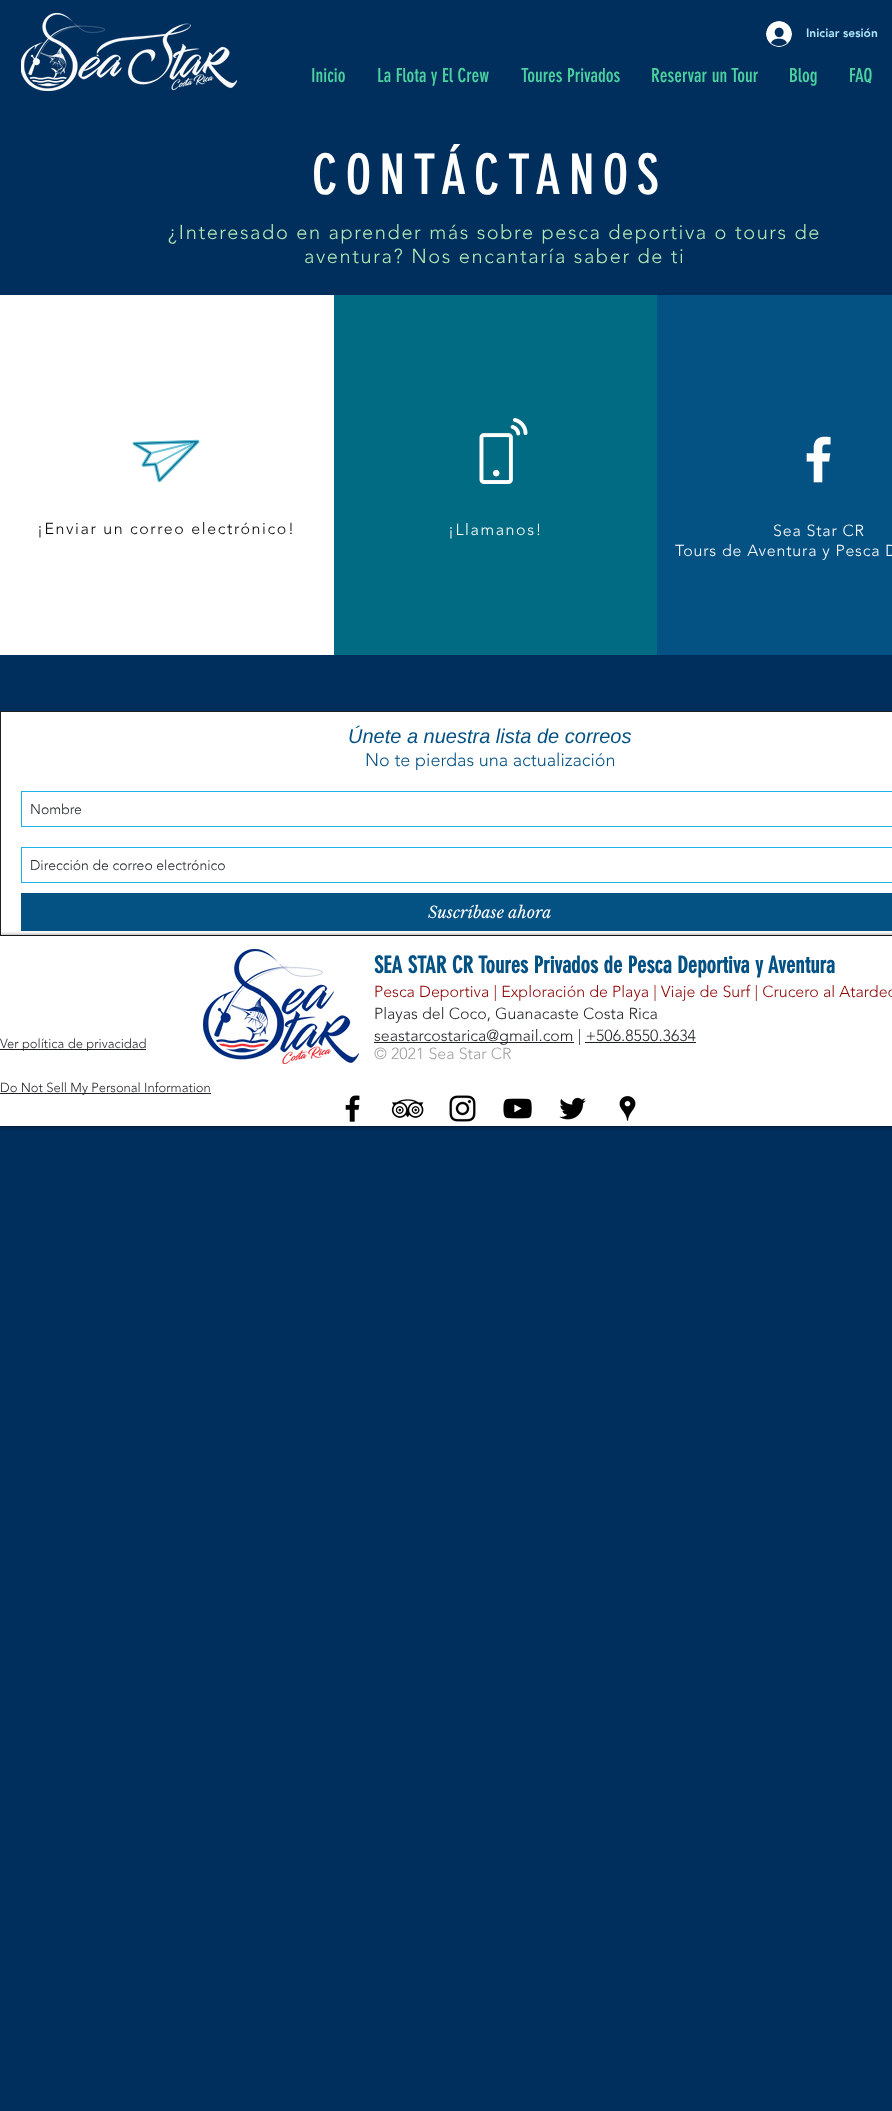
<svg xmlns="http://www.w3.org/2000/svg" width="892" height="2111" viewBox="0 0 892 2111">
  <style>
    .t1 { font: 900 12px 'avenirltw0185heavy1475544'; fill: #aee5f7; }
    .t2 { font: 19px 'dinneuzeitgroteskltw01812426'; fill: #4bd1a0; }
    .t3 { font: 55px 'dinneuzeitgroteskltw01812426'; letter-spacing: 8.25px; fill: #fff; }
    .t4 { font: 300 20px 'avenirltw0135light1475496'; letter-spacing: 1.6px; fill: #b1e8b5; }
    .t5 { font: 300 16px 'avenirltw0135light1475496'; letter-spacing: 1.6px; fill: #000; }
    .t6 { font: 300 16px 'avenirltw0135light1475496'; letter-spacing: 1.6px; fill: #fff; }
    .t7 { font: 300 16px 'avenirltw0135light1475496'; letter-spacing: 0.8px; fill: #fff; }
    .t8 { font: italic 20px Liberation Sans; fill: #045184; }
    .t9 { font: 300 18px 'avenirltw0135light1475496'; fill: #045184; }
    .t10 { font: 300 14px 'avenirltw0135light1475496'; fill: #21272b; }
    .t11 { font: italic 16px Libre Baskerville; fill: #fff; }
    .t12 { font: 300 13px 'avenirltw0135light1475496'; fill: #1d2123; }
    .t13 { font: bold 23px 'dinneuzeitgroteskltw01812426'; fill: #045184; }
    .t14 { font: 300 16px 'avenirltw0135light1475496'; fill: #8b0000; }
    .t15 { font: 300 16px 'avenirltw0135light1475496'; fill: #1d2123; }
    .t16 { font: 300 16px 'avenirltw0135light1475496'; fill: #a0a09f; }
  </style>
  <rect width="100%" height="100%" fill="#002e5d"/>
  <image x="21" y="13" width="216" height="78" href="images/1.png"/>
  <image x="766" y="21" width="26" height="26" href="images/2.png"/>
  <text x="806" y="37" class="t1">Iniciar sesión</text>
  <text x="311" y="82" class="t2">Inicio</text>
  <text x="377" y="82" class="t2">La Flota y El Crew</text>
  <text x="521" y="82" class="t2">Toures Privados</text>
  <text x="651" y="82" class="t2">Reservar un Tour</text>
  <text x="789" y="82" class="t2">Blog</text>
  <text x="849" y="82" class="t2">FAQ</text>
  <text x="312" y="194" class="t3">CONTÁCTANOS</text>
  <text x="168" y="239" class="t4">¿Interesado en aprender más sobre pesca deportiva o tours de</text>
  <text x="304" y="263" class="t4">aventura? Nos encantaría saber de ti</text>
  <rect x="0" y="295" width="334" height="360" fill="#fff"/>
  <image x="132" y="439" width="68" height="44" href="images/3.png"/>
  <text x="37" y="534" class="t5">¡Enviar un correo electrónico!</text>
  <rect x="334" y="295" width="323" height="360" fill="#006b82"/>
  <image x="479" y="418" width="49" height="66" href="images/4.png"/>
  <text x="448" y="535" class="t6">¡Llamanos!</text>
  <rect x="657" y="295" width="235" height="360" fill="#045184"/>
  <image x="806" y="436" width="25" height="47" href="images/5.png"/>
  <text x="773" y="536" class="t7">Sea Star CR</text>
  <text x="675" y="556" class="t7">Tours de Aventura y Pesca D</text>
  <rect x="0.5" y="711.5" width="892" height="224" fill="#fff" stroke="#1d2123"/>
  <text x="348" y="743" class="t8">Únete a nuestra lista de correos</text>
  <text x="365" y="766" class="t9">No te pierdas una actualización</text>
  <rect x="21.5" y="791.5" width="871" height="35" fill="none" stroke="#1bb4e8"/>
  <text x="30" y="814" class="t10">Nombre</text>
  <rect x="21.5" y="847.5" width="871" height="35" fill="none" stroke="#1bb4e8"/>
  <text x="30" y="870" class="t10">Dirección de correo electrónico</text>
  <rect x="21" y="893" width="871" height="38" fill="#045184"/>
  <text x="428" y="918" class="t11">Suscríbase ahora</text>
  <rect x="0" y="936" width="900" height="190" fill="#000000b3" filter="blur(2.5px)"/>
  <rect x="0" y="936" width="892" height="190" fill="#fff"/>
  <rect x="0" y="1049" width="146" height="1" fill="#1d2123"/>
  <text x="0" y="1048" class="t12">Ver política de privacidad</text>
  <image x="203" y="949" width="156" height="115" href="images/6.png"/>
  <text x="374" y="973" class="t13">SEA STAR CR Toures Privados de Pesca Deportiva y Aventura</text>
  <text x="374" y="997" class="t14">Pesca Deportiva | Exploración de Playa | Viaje de Surf | Crucero al Atardec</text>
  <text x="374" y="1019" class="t15">Playas del Coco, Guanacaste Costa Rica</text>
  <rect x="374" y="1042" width="200" height="1" fill="#1d2123"/>
  <text x="374" y="1041" class="t15">seastarcostarica@gmail.com | +506.8550.3634</text>
  <rect x="585" y="1042" width="111" height="1" fill="#1d2123"/>
  <text x="374" y="1059" class="t16">© 2021 Sea Star CR</text>
  <rect x="0" y="1093" width="211" height="1" fill="#1d2123"/>
  <text x="0" y="1092" class="t12">Do Not Sell My Personal Information</text>
  <image x="345" y="1095" width="15" height="27" href="images/7.png"/>
  <image x="391" y="1099" width="33" height="19" href="images/8.png"/>
  <image x="449" y="1095" width="27" height="27" href="images/9.png"/>
  <image x="503" y="1098" width="29" height="21" href="images/10.png"/>
  <image x="559" y="1097" width="27" height="23" href="images/11.png"/>
  <image x="619" y="1095" width="17" height="26" href="images/12.png"/>
</svg>
